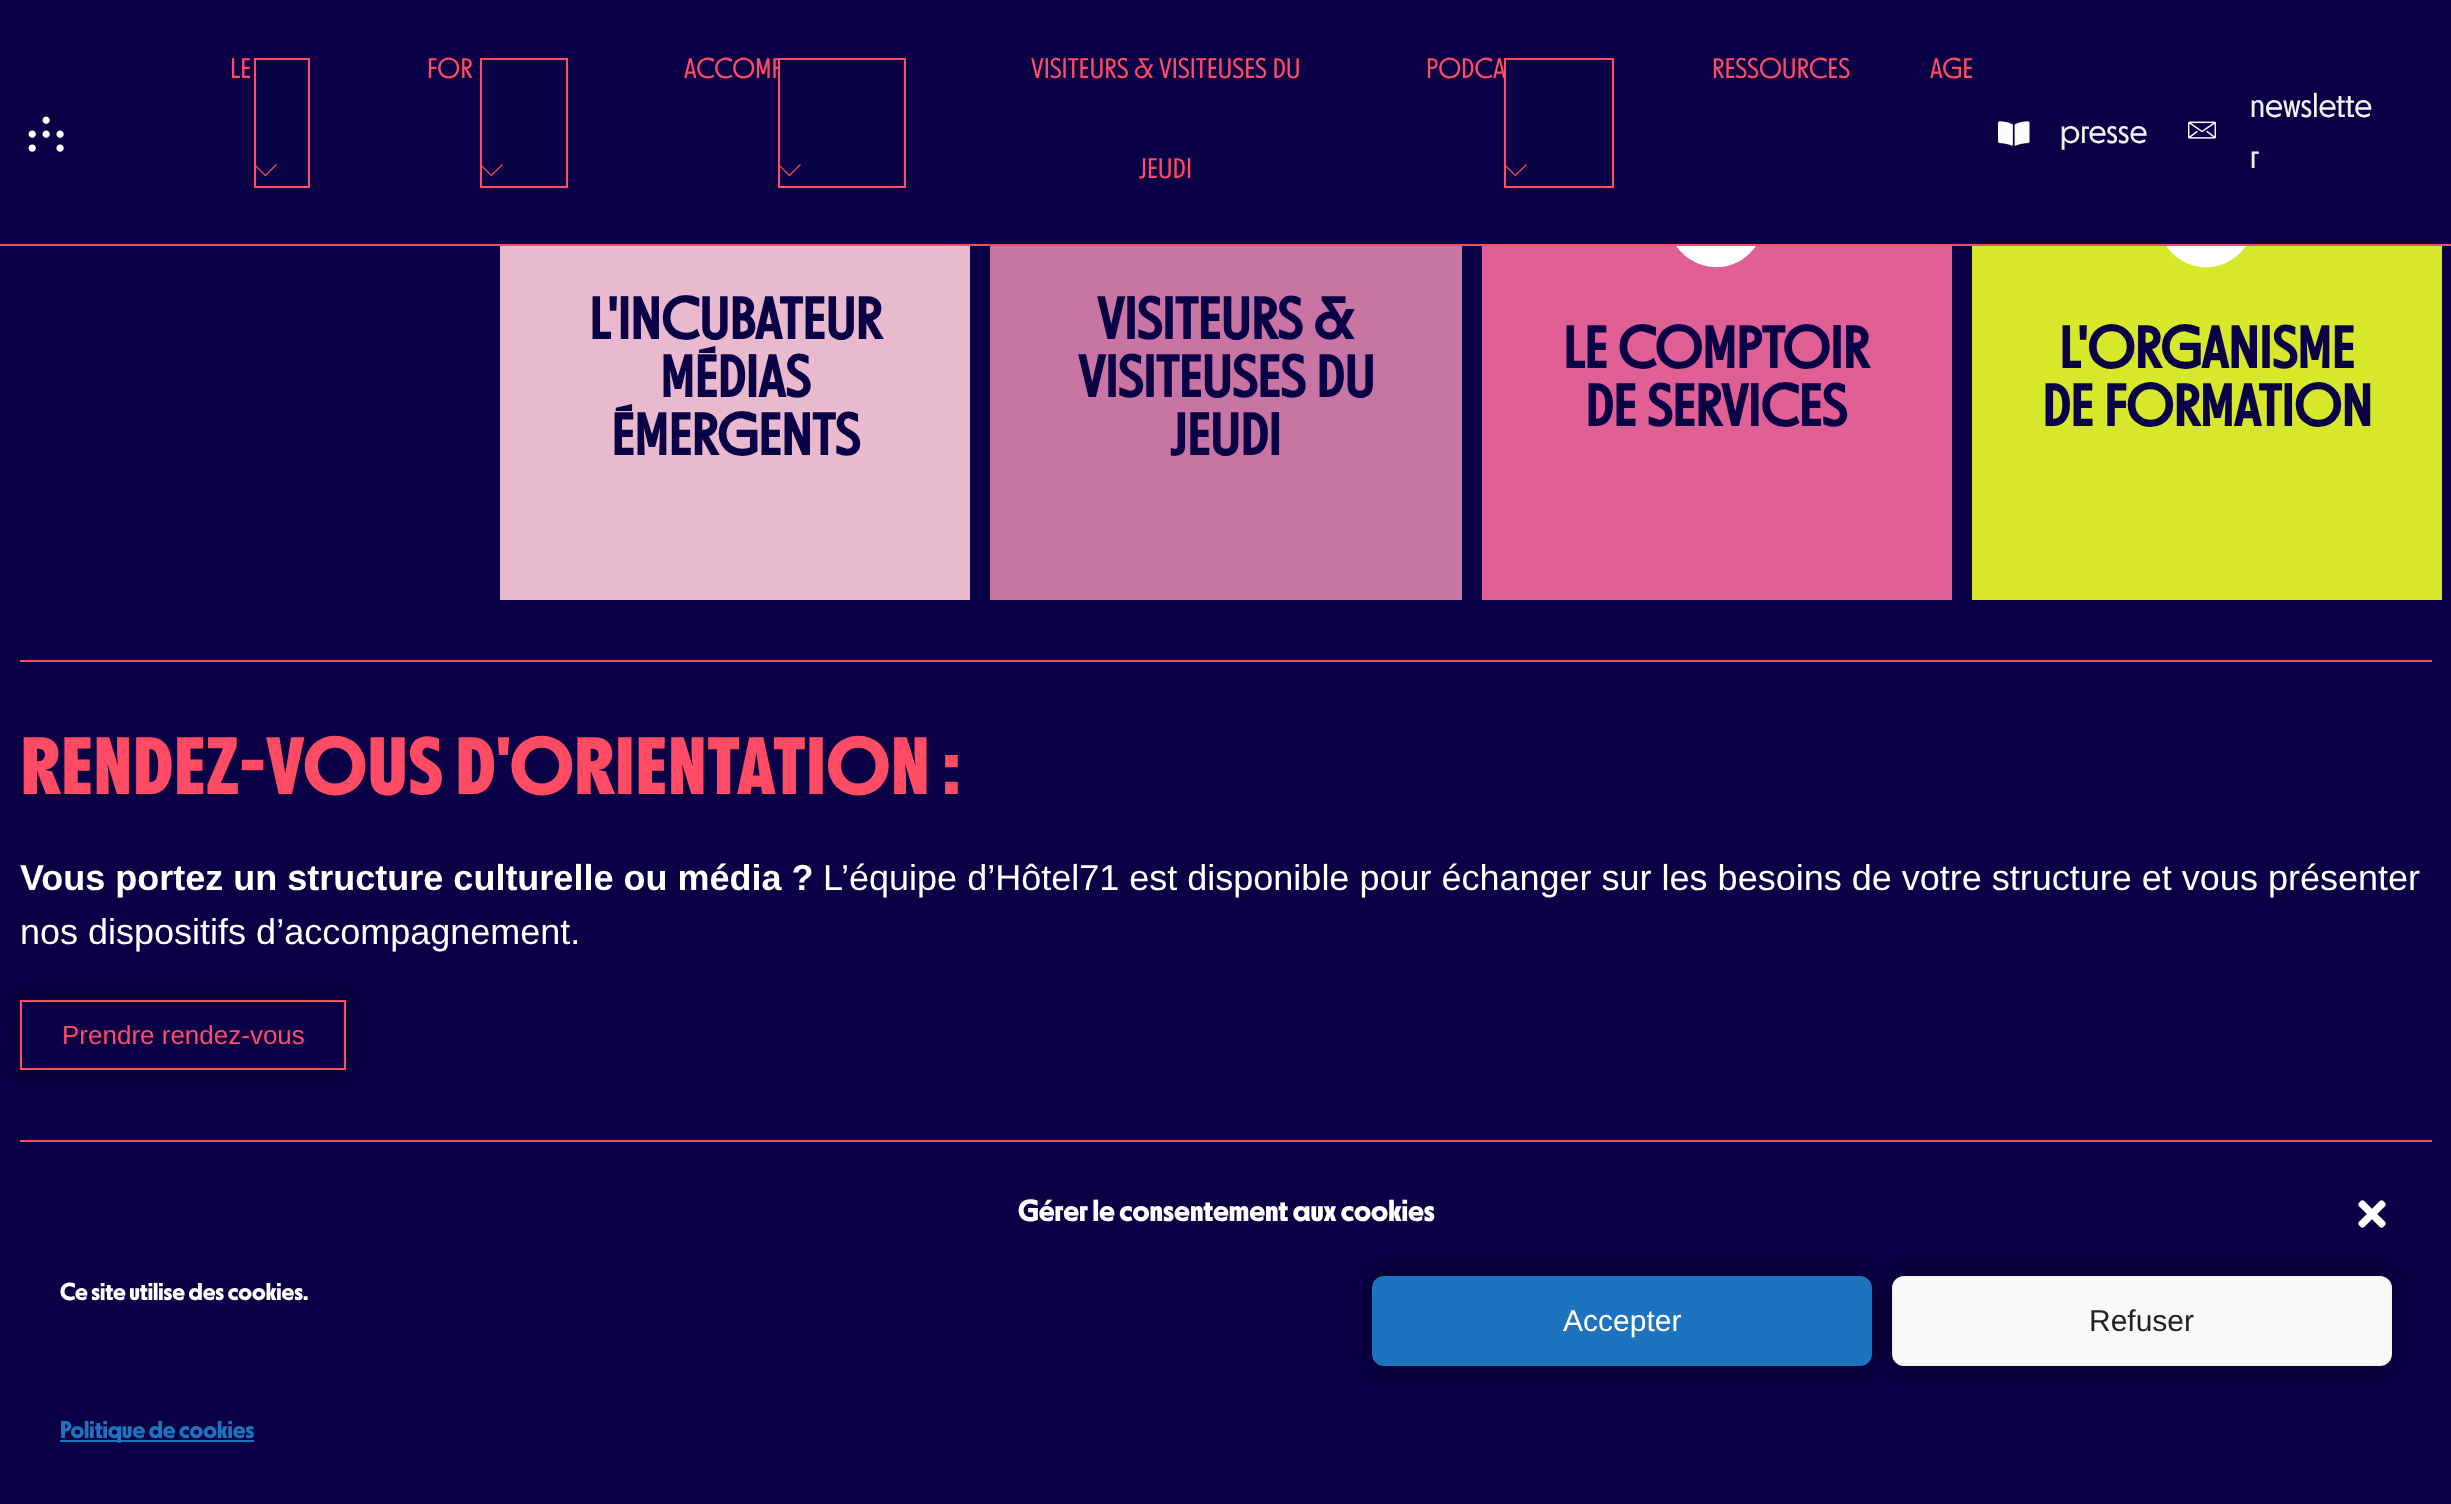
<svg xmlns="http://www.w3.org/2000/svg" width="2451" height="1504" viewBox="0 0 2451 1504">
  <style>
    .t1 { font: 300 28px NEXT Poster; fill: #ff4b64; }
    .t2 { font: 300 34px NEXT Poster; fill: #f1f1f1; }
    .t3 { font: bold 58px NEXT Poster; fill: #0a0046; }
    .t4 { font: bold 80px 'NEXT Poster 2'; fill: #ff4b64; }
    .t5 { font: bold 36px Liberation Sans; fill: #fff; }
    .t6 { font: 36px Liberation Sans; fill: #fff; }
    .t7 { font: 26px Liberation Sans; fill: #ff4b64; }
    .t8 { font: bold 30px 'NEXT Poster 2'; fill: #fff; }
    .t9 { font: bold 24px 'NEXT Poster 2'; fill: #fff; }
    .t10 { font: 30px Liberation Sans; fill: #fff; }
    .t11 { font: 30px Liberation Sans; fill: #222; }
    .t12 { font: bold 24px 'NEXT Poster 2'; fill: #1e73be; }
  </style>
  <defs>
    <clipPath id="clip1"><path d="M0 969H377V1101H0ZM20 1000H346V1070H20Z" clip-rule="evenodd"/></clipPath>
  </defs>
  <rect width="100%" height="100%" fill="#0a0046"/>
  <rect x="1482" y="246" width="470" height="354" fill="#e05f94"/>
  <path d="M1682 184C1690 176 1700 171 1711 170C1756 166 1783 221 1750 253C1718 285 1664 259 1668 214C1669 202 1674 192 1682 184Z" fill="#fff"/>
  <rect x="1972" y="246" width="470" height="354" fill="#d7e72a"/>
  <path d="M2172 184C2204 152 2258 178 2254 223C2253 235 2248 245 2240 253C2232 261 2222 266 2211 267C2166 271 2139 216 2172 184Z" fill="#fff"/>
  <rect x="1667" y="169" width="588" height="75" fill="#0a0046"/>
  <rect x="0" y="244" width="2451" height="2" fill="#ff4b64"/>
  <image x="28" y="116" width="36" height="36" href="images/1.png"/>
  <text x="230" y="78" class="t1">LE</text>
  <rect x="255" y="59" width="54" height="128" fill="#090345" stroke="#ff4b64" stroke-width="2"/>
  <image x="256" y="164" width="21" height="13" href="images/2.png"/>
  <text x="427" y="78" class="t1">FOR</text>
  <rect x="481" y="59" width="86" height="128" fill="#090345" stroke="#ff4b64" stroke-width="2"/>
  <image x="482" y="164" width="21" height="13" href="images/2.png"/>
  <text x="684" y="78" class="t1">ACCOMP</text>
  <rect x="779" y="59" width="126" height="128" fill="#090345" stroke="#ff4b64" stroke-width="2"/>
  <image x="780" y="164" width="21" height="13" href="images/2.png"/>
  <text x="1031" y="78" class="t1">VISITEURS &amp; VISITEUSES DU</text>
  <text x="1139" y="178" class="t1">JEUDI</text>
  <text x="1426" y="78" class="t1">PODCA</text>
  <rect x="1505" y="59" width="108" height="128" fill="#090345" stroke="#ff4b64" stroke-width="2"/>
  <image x="1506" y="164" width="21" height="13" href="images/2.png"/>
  <text x="1712" y="78" class="t1">RESSOURCES</text>
  <text x="1930" y="78" class="t1">AGE</text>
  <image x="1998" y="121" width="32" height="25" href="images/3.png"/>
  <text x="2060" y="143" class="t2">presse</text>
  <image x="2188" y="121" width="28" height="18" href="images/4.png"/>
  <text x="2250" y="117" class="t2">newslette</text>
  <text x="2250" y="168" class="t2">r</text>
  <rect x="500" y="246" width="470" height="354" fill="#e9bacd"/>
  <text x="589" y="339" class="t3">L'INCUBATEUR</text>
  <text x="660" y="397" class="t3">MÉDIAS</text>
  <text x="611" y="455" class="t3">ÉMERGENTS</text>
  <rect x="990" y="246" width="472" height="354" fill="#c875a3"/>
  <text x="1097" y="339" class="t3">VISITEURS &amp;</text>
  <text x="1078" y="397" class="t3">VISITEUSES DU</text>
  <text x="1170" y="455" class="t3">JEUDI</text>
  <text x="1563" y="368" class="t3">LE COMPTOIR</text>
  <text x="1585" y="426" class="t3">DE SERVICES</text>
  <text x="2059" y="368" class="t3">L'ORGANISME</text>
  <text x="2042" y="426" class="t3">DE FORMATION</text>
  <rect x="20" y="660" width="2412" height="2" fill="#ff4b64"/>
  <text x="20" y="794" class="t4">RENDEZ-VOUS D'ORIENTATION :</text>
  <text x="20" y="890" class="t5">Vous portez un structure culturelle ou média ?</text>
  <text x="823" y="890" class="t6">L’équipe d’Hôtel71 est disponible pour échanger sur les besoins de votre structure et vous présenter</text>
  <text x="20" y="944" class="t6">nos dispositifs d’accompagnement.</text>
  <g clip-path="url(#clip1)">
    <rect x="20" y="1000" width="326" height="70" fill="#00000080" filter="blur(10px)"/>
  </g>
  <rect x="21" y="1001" width="324" height="68" fill="none" stroke="#ff4b64" stroke-width="2"/>
  <text x="62" y="1044" class="t7">Prendre rendez-vous</text>
  <rect x="20" y="1140" width="2412" height="2" fill="#ff4b64"/>
  <text x="1018" y="1221" class="t8">Gérer le consentement aux cookies</text>
  <image x="2358" y="1200" width="28" height="28" href="images/5.png"/>
  <text x="60" y="1300" class="t9">Ce site utilise des cookies.</text>
  <rect x="1372" y="1276" width="500" height="90" rx="12" fill="#00000080" filter="blur(10px)"/>
  <rect x="1373" y="1277" width="498" height="88" rx="11" fill="#1e73be" stroke="#1e73be" stroke-width="2"/>
  <text x="1563" y="1331" class="t10">Accepter</text>
  <rect x="1892" y="1276" width="500" height="90" rx="12" fill="#00000080" filter="blur(10px)"/>
  <rect x="1893" y="1277" width="498" height="88" rx="11" fill="#f9f9f9" stroke="#f2f2f2" stroke-width="2"/>
  <text x="2089" y="1331" class="t11">Refuser</text>
  <rect x="60" y="1440" width="194" height="2" fill="#1e73be"/>
  <text x="60" y="1438" class="t12">Politique de cookies</text>
</svg>
